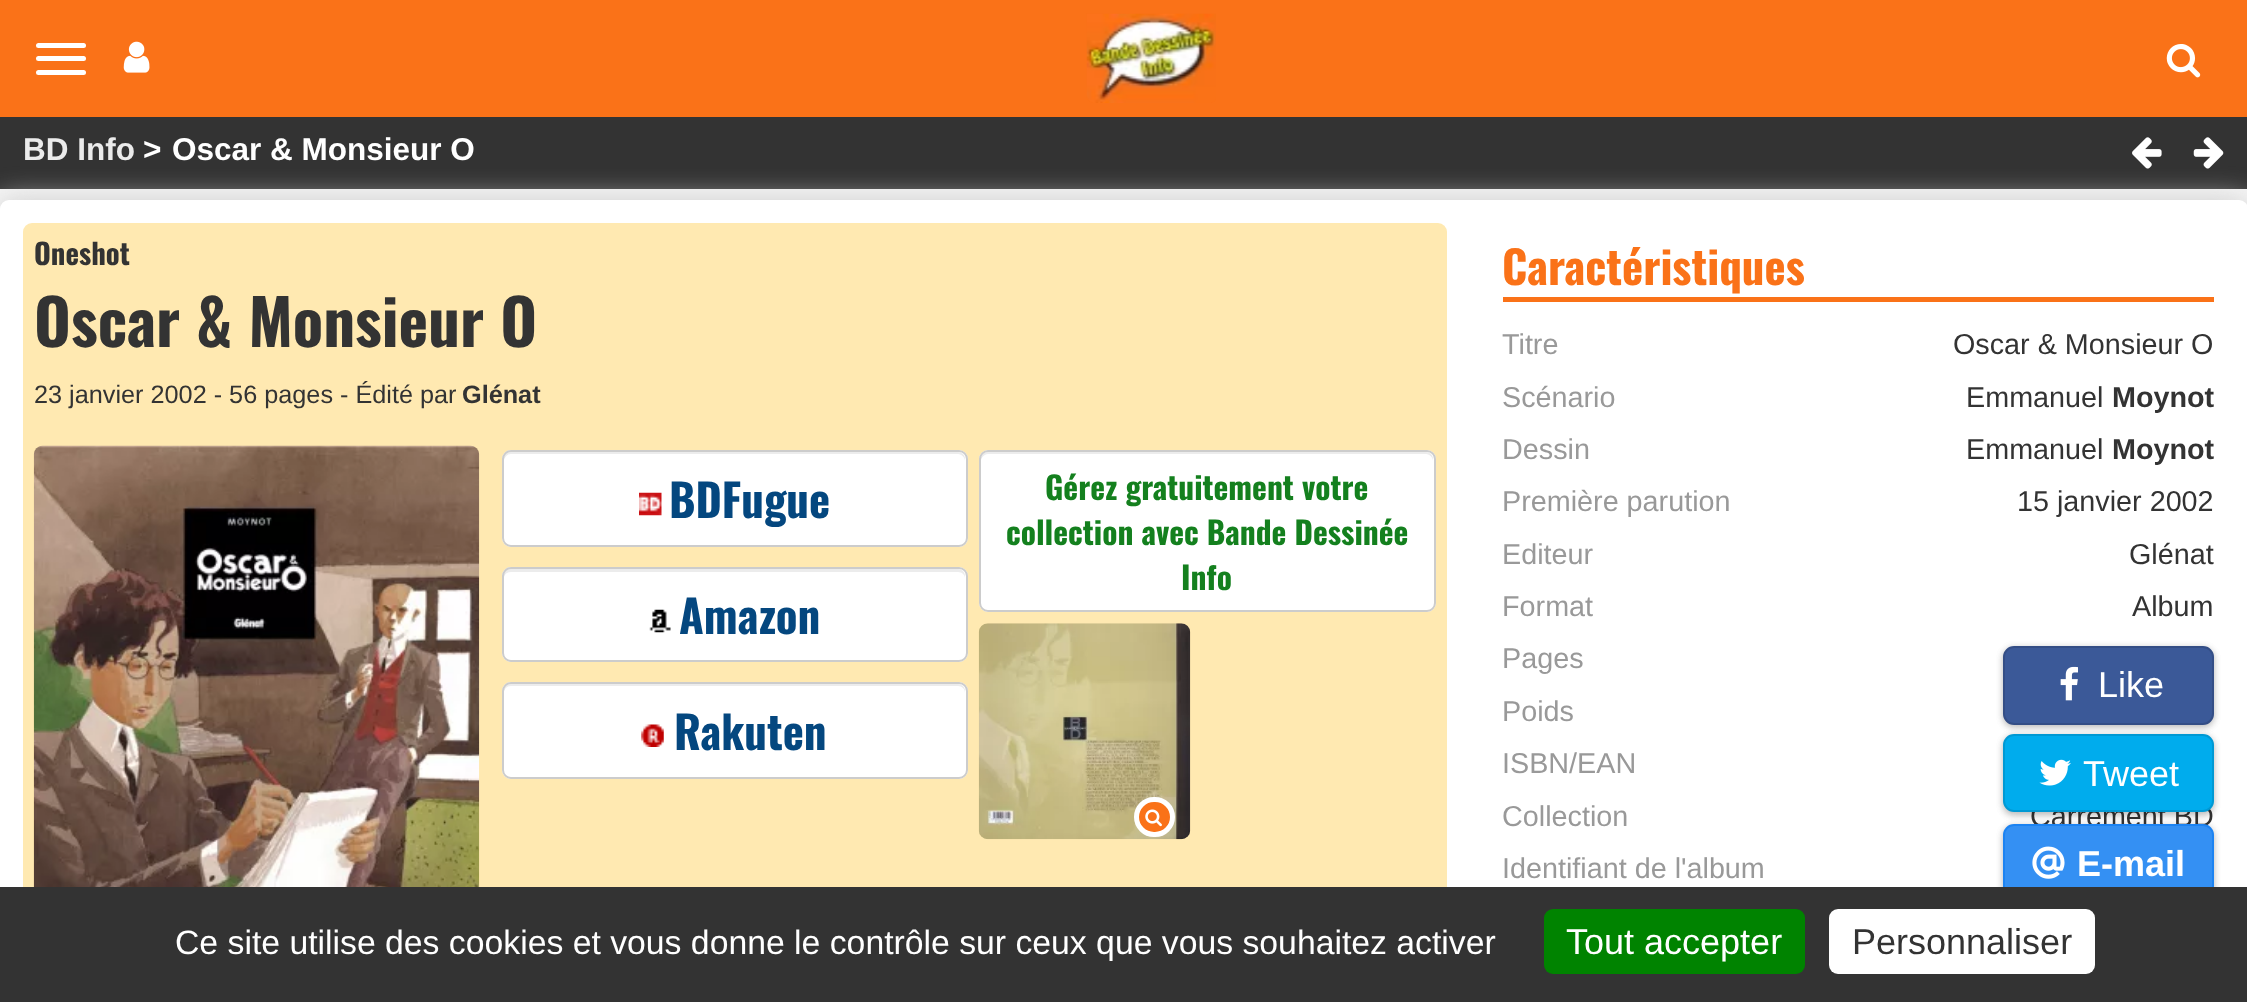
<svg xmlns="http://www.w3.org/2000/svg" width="2247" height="1002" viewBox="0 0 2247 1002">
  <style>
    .t1 { font: bold 31.5px Liberation Sans; fill: #ebebeb; }
    .t2 { font: bold 31.5px Liberation Sans; fill: #fff; }
    .t3 { font: bold 28.75px Oswald; fill: #333; }
    .t4 { font: bold 63px Oswald; fill: #333; }
    .t5 { font: 25.25px Liberation Sans; fill: #333; }
    .t6 { font: bold 25.25px Liberation Sans; fill: #333; }
    .t7 { font: bold 45px Oswald; fill: #04477f; }
    .t8 { font: bold 31.5px Oswald; fill: #14801e; }
    .t9 { font: bold 45px Oswald; fill: #fa7218; }
    .t10 { font: 28.75px Liberation Sans; fill: #999; }
    .t11 { font: 28.75px Liberation Sans; fill: #333; }
    .t12 { font: bold 28.75px Liberation Sans; fill: #333; }
    .t13 { font: 36px Liberation Sans; fill: #fff; }
    .t14 { font: bold 36px Liberation Sans; fill: #fff; }
    .t15 { font: 33.75px Liberation Sans; fill: #fff; }
    .t16 { font: 36px Liberation Sans; fill: #333; }
  </style>
  <rect width="100%" height="100%" fill="#f6f6f6"/>
  <rect x="0" y="0" width="2247" height="117" fill="#fa7218"/>
  <rect x="36" y="43" width="50" height="5" rx="2.5" fill="#fff"/>
  <rect x="36" y="56" width="50" height="5" rx="2.5" fill="#fff"/>
  <rect x="36" y="70" width="50" height="5" rx="2.5" fill="#fff"/>
  <image x="123" y="41" width="27" height="32" href="images/1.png"/>
  <image x="1086" y="13" width="130" height="90" href="images/2.png"/>
  <image x="2166" y="44" width="35" height="34" href="images/3.png"/>
  <rect x="0" y="117" width="2247" height="72" fill="#333"/>
  <rect x="0" y="200" width="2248" height="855" rx="9" fill="#ccc" filter="blur(14.5px)"/>
  <text x="23" y="160" class="t1">BD Info</text>
  <text x="143" y="160" class="t2">&gt;</text>
  <text x="172" y="160" class="t2">Oscar &amp; Monsieur O</text>
  <image x="2132" y="137" width="30" height="32" href="images/4.png"/>
  <image x="2193" y="137" width="31" height="32" href="images/5.png"/>
  <rect x="0" y="200" width="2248" height="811" rx="9" fill="#fff"/>
  <rect x="23" y="223" width="1424" height="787" rx="9" fill="#ffe9b1"/>
  <text x="34" y="265" class="t3">Oneshot</text>
  <text x="34" y="347" class="t4">Oscar &amp; Monsieur O</text>
  <text x="34" y="403" class="t5">23 janvier 2002 - 56 pages - Édité par</text>
  <text x="462" y="403" class="t6">Glénat</text>
  <image x="33" y="445" width="447" height="442" href="images/6.png"/>
  <rect x="502" y="450" width="466" height="97" rx="9" fill="#fff"/>
  <path d="M511 454H958C962 454 965 458 965 461V459C965 455 962 452 958 452H511C507 452 504 455 504 459V461C504 458 507 454 511 454Z" fill="#ececec"/>
  <rect x="503" y="451" width="464" height="95" rx="8" fill="none" stroke="#ccc" stroke-width="2"/>
  <image x="639" y="492" width="23" height="24" href="images/7.png"/>
  <text x="669" y="518" class="t7">BDFugue</text>
  <rect x="502" y="567" width="466" height="95" rx="9" fill="#fff"/>
  <path d="M511 572H958C962 572 965 575 965 578V576C965 572 962 569 958 569H511C507 569 504 572 504 576V578C504 575 507 572 511 572Z" fill="#ececec"/>
  <rect x="503" y="568" width="464" height="93" rx="8" fill="none" stroke="#ccc" stroke-width="2"/>
  <image x="649" y="609" width="22" height="24" href="images/8.png"/>
  <text x="679" y="634" class="t7">Amazon</text>
  <rect x="502" y="682" width="466" height="97" rx="9" fill="#fff"/>
  <path d="M511 686H958C962 686 965 689 965 693V691C965 687 962 684 958 684H511C507 684 504 687 504 691V693C504 689 507 686 511 686Z" fill="#ececec"/>
  <rect x="503" y="683" width="464" height="95" rx="8" fill="none" stroke="#ccc" stroke-width="2"/>
  <image x="641" y="724" width="23" height="23" href="images/9.png"/>
  <text x="674" y="750" class="t7">Rakuten</text>
  <rect x="979" y="450" width="457" height="162" rx="9" fill="#fff"/>
  <path d="M988 454H1426C1430 454 1433 458 1433 461V459C1433 455 1430 452 1426 452H988C984 452 981 455 981 459V461C981 458 984 454 988 454Z" fill="#ececec"/>
  <rect x="980" y="451" width="455" height="160" rx="8" fill="none" stroke="#ccc" stroke-width="2"/>
  <text x="1045" y="500" class="t8">Gérez gratuitement votre</text>
  <text x="1006" y="545" class="t8">collection avec Bande Dessinée</text>
  <text x="1181" y="590" class="t8">Info</text>
  <image x="978" y="623" width="213" height="217" href="images/10.png"/>
  <rect x="1136.5" y="799.5" width="36" height="35" rx="17.5" fill="#fa7218" stroke="#fff" stroke-width="5"/>
  <image x="1145" y="809" width="17" height="18" href="images/11.png"/>
  <rect x="1503" y="297" width="711" height="5" fill="#fa7218"/>
  <text x="1502" y="285" class="t9">Caractéristiques</text>
  <text x="1502" y="354" class="t10">Titre</text>
  <text x="1953" y="354" class="t11">Oscar &amp; Monsieur O</text>
  <text x="1502" y="407" class="t10">Scénario</text>
  <text x="1966" y="407" class="t11">Emmanuel</text>
  <text x="2112" y="407" class="t12">Moynot</text>
  <text x="1502" y="459" class="t10">Dessin</text>
  <text x="1966" y="459" class="t11">Emmanuel</text>
  <text x="2112" y="459" class="t12">Moynot</text>
  <text x="1502" y="511" class="t10">Première parution</text>
  <text x="2017" y="511" class="t11">15 janvier 2002</text>
  <text x="1502" y="564" class="t10">Editeur</text>
  <text x="2129" y="564" class="t11">Glénat</text>
  <text x="1502" y="616" class="t10">Format</text>
  <text x="2132" y="616" class="t11">Album</text>
  <text x="1502" y="668" class="t10">Pages</text>
  <text x="1502" y="721" class="t10">Poids</text>
  <text x="1502" y="773" class="t10">ISBN/EAN</text>
  <text x="1502" y="826" class="t10">Collection</text>
  <text x="2030" y="826" class="t11">Carrément BD</text>
  <text x="1502" y="878" class="t10">Identifiant de l'album</text>
  <rect x="2003" y="648" width="211" height="79" rx="11" fill="#00000026" filter="blur(3.5px)"/>
  <rect x="2003" y="648" width="211" height="79" rx="11" fill="#00000026" filter="blur(3.5px)"/>
  <rect x="2004" y="647" width="209" height="77" rx="10" fill="#3b5998" stroke="#344e86" stroke-width="2"/>
  <image x="2060" y="666" width="18" height="35" href="images/12.png"/>
  <text x="2098" y="697" class="t13">Like</text>
  <rect x="2003" y="736" width="211" height="79" rx="11" fill="#00000026" filter="blur(3.5px)"/>
  <rect x="2003" y="736" width="211" height="79" rx="11" fill="#00000026" filter="blur(3.5px)"/>
  <rect x="2004" y="735" width="209" height="76" rx="10" fill="#00aced" stroke="#0099d4" stroke-width="2"/>
  <image x="2039" y="759" width="32" height="27" href="images/13.png"/>
  <text x="2083" y="786" class="t13">Tweet</text>
  <rect x="2003" y="826" width="211" height="79" rx="11" fill="#00000026" filter="blur(3.5px)"/>
  <rect x="2003" y="826" width="211" height="79" rx="11" fill="#00000026" filter="blur(3.5px)"/>
  <rect x="2004" y="825" width="209" height="76" rx="10" fill="#3490f3" stroke="#1c83f2" stroke-width="2"/>
  <image x="2032" y="846" width="33" height="33" href="images/14.png"/>
  <text x="2077" y="876" class="t14">E-mail</text>
  <rect x="0" y="887" width="2247" height="115" fill="#333"/>
  <text x="175" y="954" class="t15">Ce site utilise des cookies et vous donne le contrôle sur ceux que vous souhaitez activer</text>
  <rect x="1544" y="909" width="261" height="65" rx="9" fill="#008300"/>
  <text x="1566" y="954" class="t13">Tout accepter</text>
  <rect x="1829" y="909" width="266" height="65" rx="9" fill="#fff"/>
  <text x="1852" y="954" class="t16">Personnaliser</text>
</svg>
